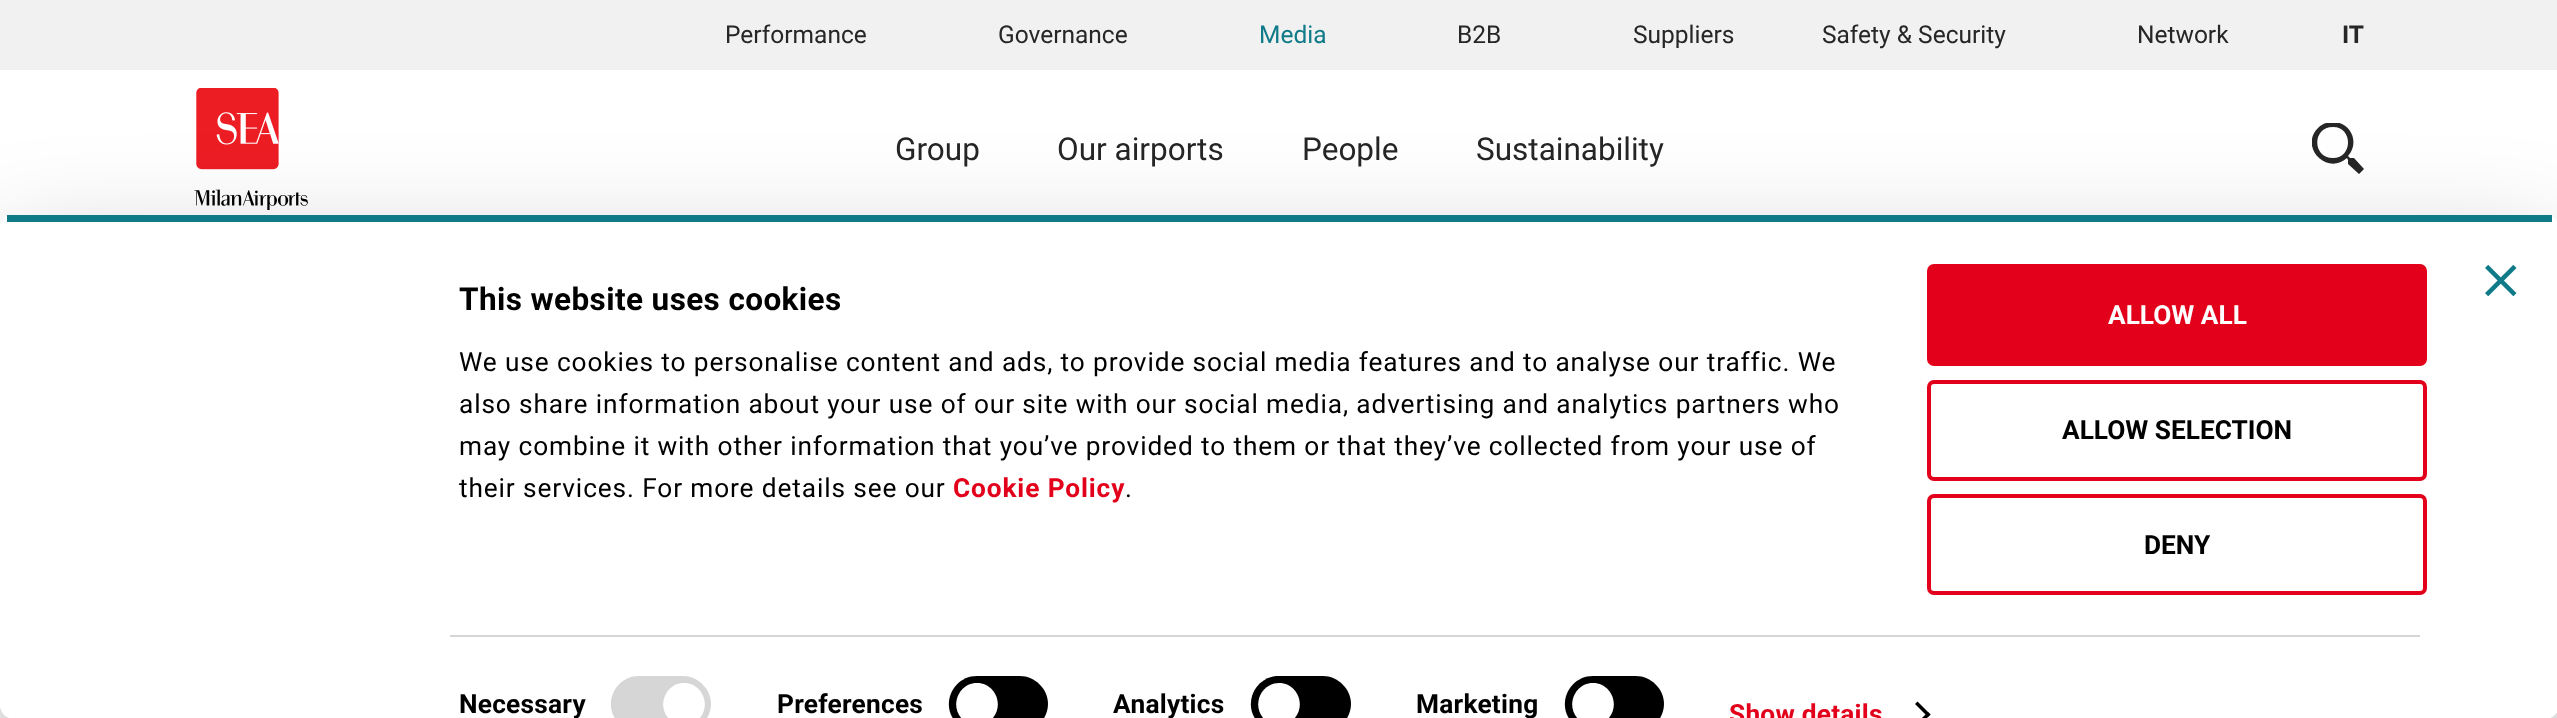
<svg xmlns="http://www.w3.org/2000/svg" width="2557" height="718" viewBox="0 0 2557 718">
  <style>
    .t1 { font: 24.5px Roboto; fill: #262626; }
    .t2 { font: 24.5px Roboto; fill: #0f7a88; }
    .t3 { font: bold 24.5px Roboto; fill: #262626; }
    .t4 { font: 31.5px Roboto; fill: #262626; }
    .t5 { font: bold 31.5px Roboto; letter-spacing: 0.4px; fill: #000; }
    .t6 { font: 26.25px Roboto; letter-spacing: 0.88px; fill: #000; }
    .t7 { font: bold 26.25px Roboto; letter-spacing: 0.88px; fill: #e2001a; }
    .t8 { font: bold 26.25px Roboto; letter-spacing: 0.25px; fill: #000; }
    .t9 { font: bold 26.25px Roboto; letter-spacing: 0.25px; fill: #e2001a; }
    .t10 { font: bold 26.25px Roboto; fill: #fff; }
    .t11 { font: bold 26.25px Roboto; fill: #000; }
  </style>
  <defs>
    <clipPath id="clip1"><rect x="2312" y="123" width="52" height="52"/></clipPath>
  </defs>
  <rect width="100%" height="100%" fill="#fff"/>
  <rect x="0" y="0" width="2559" height="228" fill="#26262633" filter="blur(9px)"/>
  <rect x="0" y="70" width="2557" height="158" fill="#fff"/>
  <rect x="0" y="0" width="2557" height="70" fill="#f1f1f2"/>
  <text x="725" y="43" class="t1">Performance</text>
  <text x="998" y="43" class="t1">Governance</text>
  <text x="1259" y="43" class="t2">Media</text>
  <text x="1457" y="43" class="t1">B2B</text>
  <text x="1633" y="43" class="t1">Suppliers</text>
  <text x="1822" y="43" class="t1">Safety &amp; Security</text>
  <text x="2137" y="43" class="t1">Network</text>
  <text x="2342" y="43" class="t3">IT</text>
  <image x="194" y="88" width="114" height="122" href="images/1.png"/>
  <text x="895" y="160" class="t4">Group</text>
  <text x="1057" y="160" class="t4">Our airports</text>
  <text x="1302" y="160" class="t4">People</text>
  <text x="1476" y="160" class="t4">Sustainability</text>
  <g clip-path="url(#clip1)">
    <path d="M2333 122C2327 122 2322 124 2318 128C2299 147 2327 176 2347 158L2348 160V164L2359 174L2364 169L2354 158H2350L2348 156C2360 143 2351 122 2333 122ZM2333 127C2353 127 2353 158 2333 158C2312 158 2312 127 2333 127Z" fill="#262626"/>
  </g>
  <rect x="0" y="268" width="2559" height="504" rx="14" fill="#0000004d" filter="blur(61px)"/>
  <rect x="0" y="215" width="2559" height="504" rx="14" fill="#fff"/>
  <rect x="7" y="215" width="2545" height="7" fill="#0f7a88"/>
  <image x="2485" y="264" width="32" height="32" href="images/2.png"/>
  <text x="459" y="310" class="t5">This website uses cookies</text>
  <text x="459" y="371" class="t6">We use cookies to personalise content and ads, to provide social media features and to analyse our traffic. We</text>
  <text x="459" y="413" class="t6">also share information about your use of our site with our social media, advertising and analytics partners who</text>
  <text x="459" y="455" class="t6">may combine it with other information that you’ve provided to them or that they’ve collected from your use of</text>
  <text x="459" y="497" class="t6">their services. For more details see our</text>
  <text x="953" y="497" class="t7">Cookie Policy</text>
  <text x="1125" y="497" class="t6">.</text>
  <rect x="450" y="635" width="1970" height="2" fill="#d6d6d6"/>
  <text x="459" y="713" class="t8">Necessary</text>
  <path d="M639 676H683C698 676 711 689 711 704C711 710 709 715 706 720H616C603 702 616 676 639 676Z" fill="#d6d6d6"/>
  <path d="M684 683C703 683 712 707 698 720H670C656 707 665 683 684 683Z" fill="#fff"/>
  <text x="777" y="713" class="t8">Preferences</text>
  <path d="M977 676H1020C1035 676 1048 689 1048 704C1048 710 1046 715 1043 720H954C941 702 954 676 977 676Z" fill="#000"/>
  <path d="M977 683C996 683 1005 707 991 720H963C949 707 958 683 977 683Z" fill="#fff"/>
  <text x="1113" y="713" class="t8">Analytics</text>
  <path d="M1279 676H1323C1338 676 1351 689 1351 704C1351 710 1349 715 1346 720H1256C1243 702 1256 676 1279 676Z" fill="#000"/>
  <path d="M1279 683C1298 683 1307 707 1293 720H1265C1251 707 1260 683 1279 683Z" fill="#fff"/>
  <text x="1416" y="713" class="t8">Marketing</text>
  <path d="M1593 676H1636C1651 676 1664 689 1664 704C1664 710 1662 715 1659 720H1570C1557 702 1570 676 1593 676Z" fill="#000"/>
  <path d="M1593 683C1612 683 1621 707 1607 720H1579C1565 707 1574 683 1593 683Z" fill="#fff"/>
  <text x="1729" y="723" class="t9">Show details</text>
  <path d="M1917.5 701.5L1930.5 714.5L1928 717L1915 704Z" fill="#000"/>
  <path d="M1928 712L1930.5 714.5L1925 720H1920Z" fill="#000"/>
  <rect x="1929" y="266" width="496" height="98" rx="5" fill="#e2001a" stroke="#e2001a" stroke-width="4"/>
  <text x="2108" y="324" class="t10">ALLOW ALL</text>
  <rect x="1929" y="382" width="496" height="97" rx="5" fill="none" stroke="#e2001a" stroke-width="4"/>
  <text x="2062" y="439" class="t11">ALLOW SELECTION</text>
  <rect x="1929" y="496" width="496" height="97" rx="5" fill="none" stroke="#e2001a" stroke-width="4"/>
  <text x="2144" y="554" class="t11">DENY</text>
</svg>
